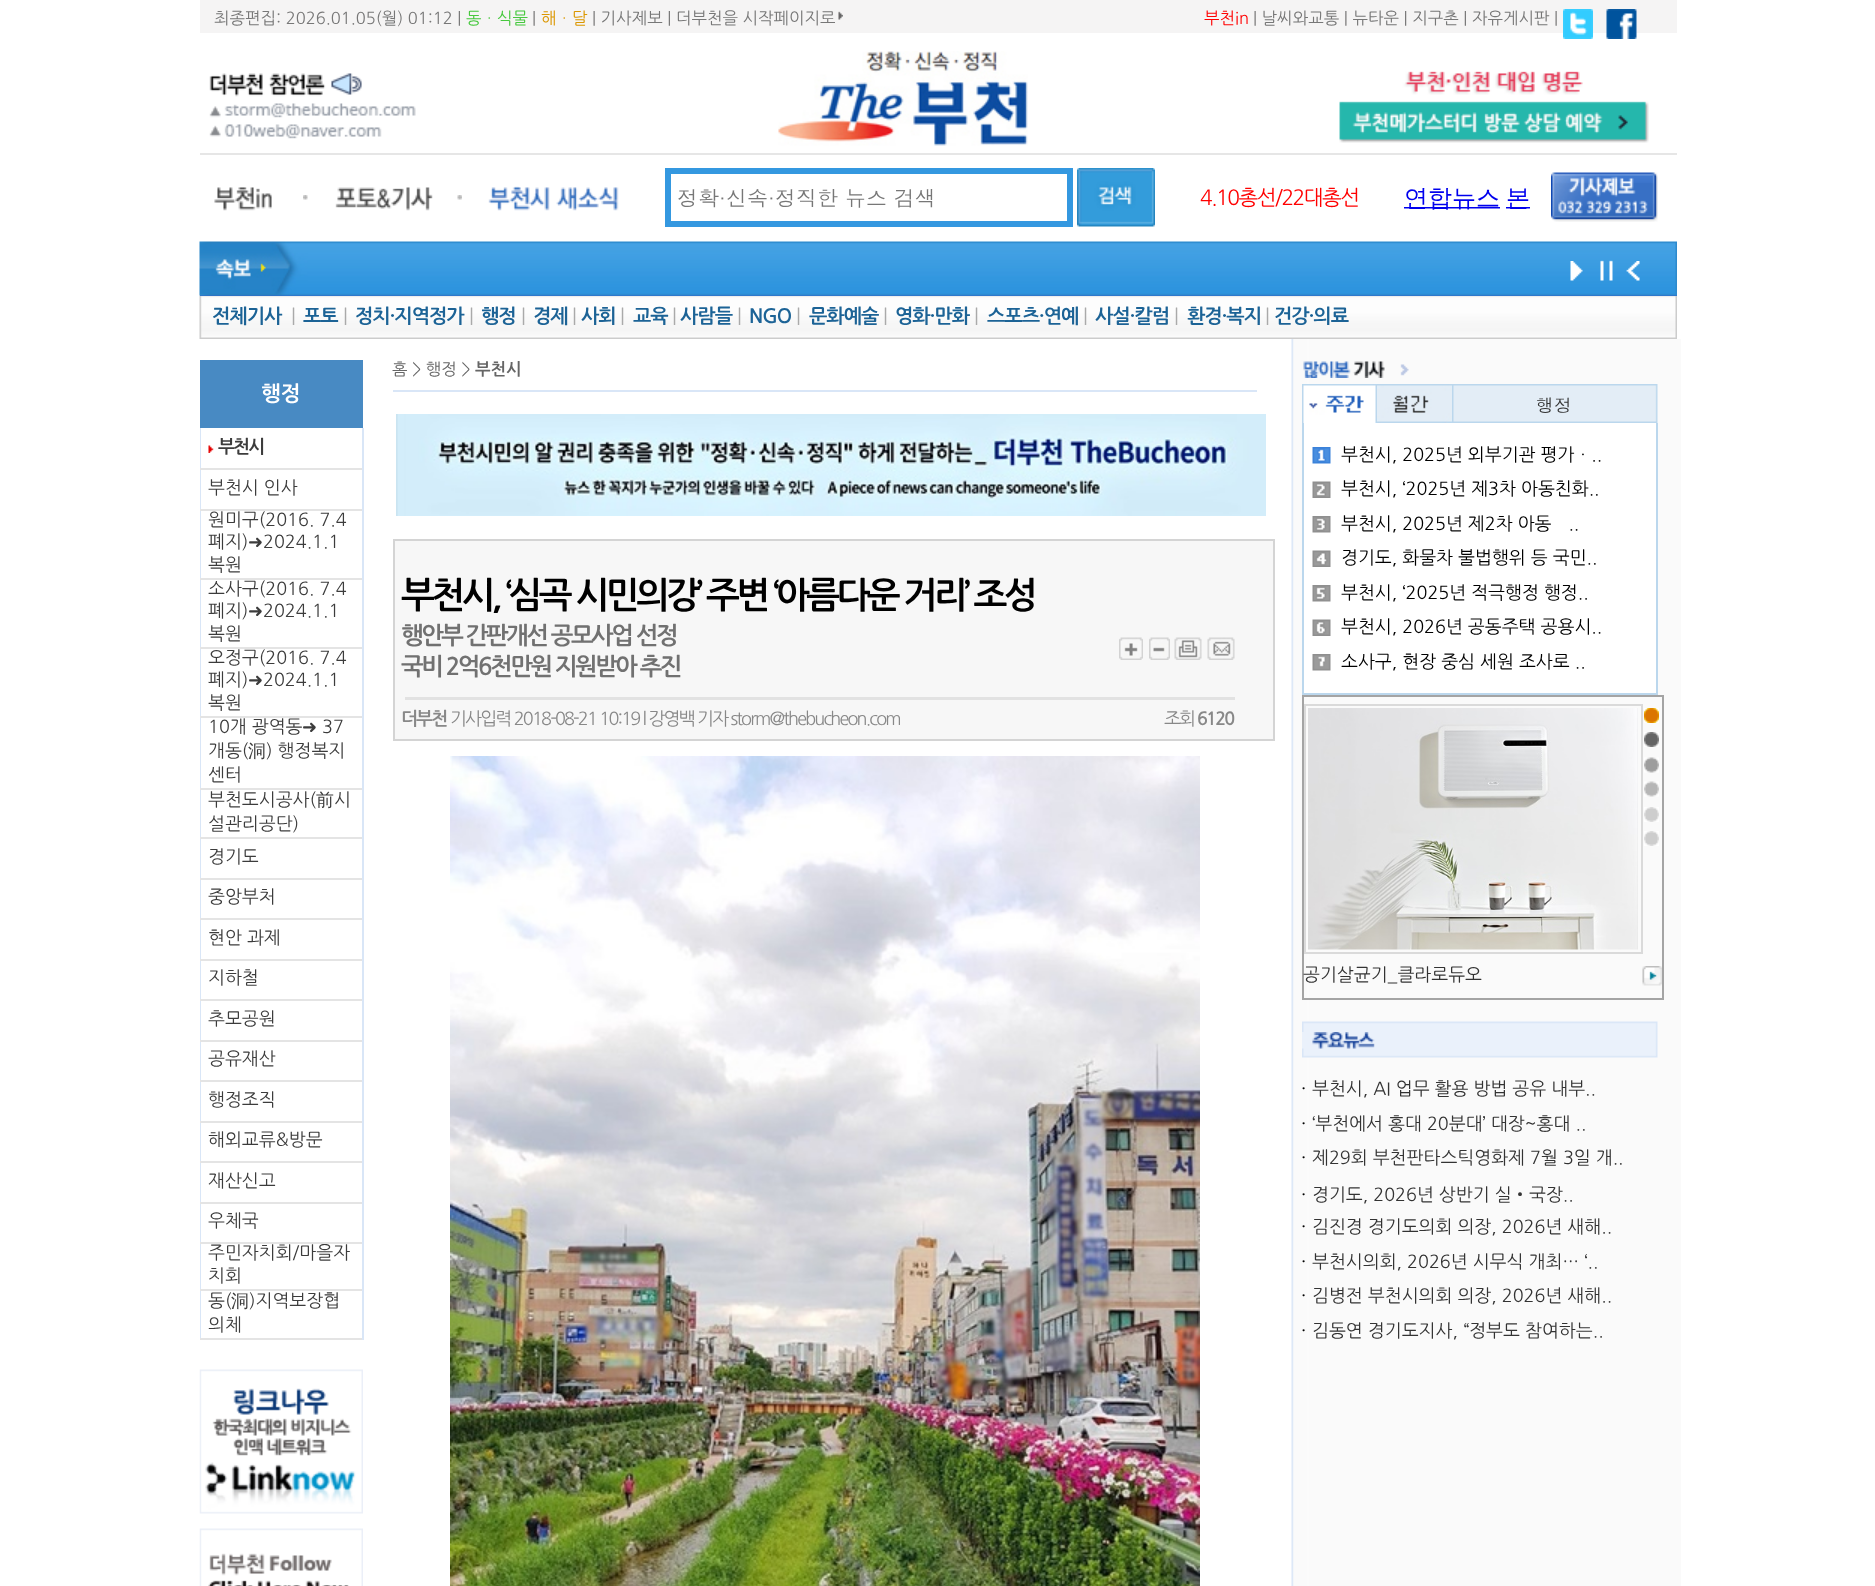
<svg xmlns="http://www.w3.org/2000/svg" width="1875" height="1586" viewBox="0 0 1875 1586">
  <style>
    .t1 { font: 16.5px NanumGothic; fill: #777; }
    .t2 { font: 16.5px NanumGothic; fill: #47c83e; }
    .t3 { font: 16.5px NanumGothic; fill: #db9700; }
    .t4 { font: 16.5px NanumGothic; fill: #f00; }
    .t5 { font: 21px Dotum; fill: #777; }
    .t6 { font: 21px NanumGothic; letter-spacing: -1.5px; fill: #f00; }
    .t7 { font: bold 19.5px NanumGothic; letter-spacing: -1px; fill: #1c6396; }
    .t8 { font: 19.5px NanumGothic; letter-spacing: -1px; fill: #aaa; }
    .t9 { font: bold 21px NanumGothic; fill: #fff; }
    .t10 { font: bold 18px NanumGothic; letter-spacing: -1.8px; fill: #3c3c3c; }
    .t11 { font: 18px NanumGothic; fill: #3c3c3c; }
    .t12 { font: 18px DejaVu Sans; fill: #3c3c3c; }
    .t13 { font: 500 18px WenQuanYi Zen Hei; fill: #3c3c3c; }
    .t14 { font: 16.5px NanumGothic; fill: #666; }
    .t15 { font: bold 16.5px NanumGothic; fill: #666; }
    .t16 { font: bold 36px NanumGothic; letter-spacing: -3.6px; fill: #000; }
    .t17 { font: bold 24px NanumGothic; letter-spacing: -2.4px; fill: #717171; }
    .t18 { font: bold 18px NanumGothic; letter-spacing: -1.8px; fill: #888; }
    .t19 { font: 18px NanumGothic; letter-spacing: -1.8px; fill: #888; }
    .t20 { font: 18px Dotum; fill: #333; }
    .t21 { font: 18px NanumGothic; fill: #000; }
    .t22 { font: 18px NanumGothic; fill: #333; }
    .t23 { font: 18px Noto Sans CJK KR; fill: #333; }
  </style>
  <rect width="100%" height="100%" fill="#fff"/>
  <rect x="200" y="0" width="1477" height="33" fill="#f5f4f4"/>
  <text x="214" y="24" class="t1">최종편집: 2026.01.05(월) 01:12 |</text>
  <text x="466" y="24" class="t2">동ㆍ식물</text>
  <text x="532" y="24" class="t1">|</text>
  <text x="541" y="24" class="t3">해ㆍ달</text>
  <text x="592" y="24" class="t1">| 기사제보 | 더부천을 시작페이지로</text>
  <image x="838" y="11" width="5" height="9" href="images/1.png"/>
  <text x="1204" y="24" class="t4">부천in</text>
  <text x="1253" y="24" class="t1">| 날씨와교통 | 뉴타운 | 지구촌 | 자유게시판 |</text>
  <image x="1563" y="9" width="30" height="30" href="images/2.png"/>
  <image x="1606" y="9" width="31" height="30" href="images/3.png"/>
  <image x="209" y="73" width="207" height="66" href="images/4.png"/>
  <image x="778" y="51" width="250" height="95" href="images/5.png"/>
  <image x="1339" y="71" width="310" height="72" href="images/6.png"/>
  <rect x="200" y="153" width="1477" height="2" fill="#e6e6e6"/>
  <image x="214" y="187" width="58" height="24" href="images/7.png"/>
  <image x="303" y="195" width="5" height="5" href="images/8.png"/>
  <image x="335" y="187" width="98" height="24" href="images/9.png"/>
  <image x="457" y="195" width="5" height="5" href="images/10.png"/>
  <image x="488" y="186" width="131" height="25" href="images/11.png"/>
  <rect x="668" y="171" width="402" height="53" fill="none" stroke="#3498e0" stroke-width="6"/>
  <text x="677" y="206" class="t5">정확·신속·정직한 뉴스 검색</text>
  <image x="1077" y="168" width="78" height="59" href="images/12.png"/>
  <text x="1200" y="205" class="t6">4.10총선/22대총선</text>
  <image x="1404" y="188" width="126" height="22" href="images/13.png"/>
  <image x="1551" y="172" width="107" height="50" href="images/14.png"/>
  <image x="199" y="295" width="1478" height="44" href="images/19.png"/>
  <rect x="200" y="295" width="1477" height="1" fill="#36c"/>
  <image x="199" y="241" width="1478" height="55" href="images/15.png"/>
  <image x="1570" y="261" width="13" height="20" href="images/16.png"/>
  <image x="1600" y="260" width="13" height="21" href="images/17.png"/>
  <image x="1626" y="261" width="14" height="20" href="images/18.png"/>
  <text x="212" y="323" class="t7">전체기사</text>
  <text x="291" y="323" class="t8">|</text>
  <text x="303" y="323" class="t7">포토</text>
  <text x="343" y="323" class="t8">|</text>
  <text x="355" y="323" class="t7">정치·지역정가</text>
  <text x="469" y="323" class="t8">|</text>
  <text x="481" y="323" class="t7">행정</text>
  <text x="521" y="323" class="t8">|</text>
  <text x="533" y="323" class="t7">경제</text>
  <text x="572" y="323" class="t8">|</text>
  <text x="581" y="323" class="t7">사회</text>
  <text x="620" y="323" class="t8">|</text>
  <text x="633" y="323" class="t7">교육</text>
  <text x="672" y="323" class="t8">|</text>
  <text x="680" y="323" class="t7">사람들</text>
  <text x="737" y="323" class="t8">|</text>
  <text x="749" y="323" class="t7">NGO</text>
  <text x="796" y="323" class="t8">|</text>
  <text x="809" y="323" class="t7">문화예술</text>
  <text x="883" y="323" class="t8">|</text>
  <text x="895" y="323" class="t7">영화·만화</text>
  <text x="974" y="323" class="t8">|</text>
  <text x="987" y="323" class="t7">스포츠·연예</text>
  <text x="1083" y="323" class="t8">|</text>
  <text x="1095" y="323" class="t7">사설·칼럼</text>
  <text x="1174" y="323" class="t8">|</text>
  <text x="1187" y="323" class="t7">환경·복지</text>
  <text x="1265" y="323" class="t8">|</text>
  <text x="1274" y="323" class="t7">건강·의료</text>
  <image x="1291" y="339" width="390" height="1247" href="images/20.png"/>
  <rect x="200" y="360" width="163" height="68" fill="#488ac3"/>
  <text x="261" y="401" class="t9">행정</text>
  <rect x="362" y="428" width="2" height="912" fill="#d9e6f7"/>
  <rect x="200" y="428" width="1" height="912" fill="#d9e6f7"/>
  <rect x="200" y="468" width="162" height="2" fill="#e4e4e4"/>
  <image x="208" y="445" width="6" height="8" href="images/21.png"/>
  <text x="218" y="453" class="t10">부천시</text>
  <rect x="200" y="509" width="162" height="2" fill="#e4e4e4"/>
  <text x="208" y="494" class="t11">부천시 인사</text>
  <rect x="200" y="578" width="162" height="2" fill="#e4e4e4"/>
  <text x="208" y="526" class="t11">원미구(2016. 7.4</text>
  <text x="208" y="548" class="t11">폐지)</text>
  <text x="248" y="548" class="t12">➜</text>
  <text x="263" y="548" class="t11">2024.1.1</text>
  <text x="208" y="571" class="t11">복원</text>
  <rect x="200" y="647" width="162" height="2" fill="#e4e4e4"/>
  <text x="208" y="595" class="t11">소사구(2016. 7.4</text>
  <text x="208" y="617" class="t11">폐지)</text>
  <text x="248" y="617" class="t12">➜</text>
  <text x="263" y="617" class="t11">2024.1.1</text>
  <text x="208" y="640" class="t11">복원</text>
  <rect x="200" y="716" width="162" height="2" fill="#e4e4e4"/>
  <text x="208" y="664" class="t11">오정구(2016. 7.4</text>
  <text x="208" y="686" class="t11">폐지)</text>
  <text x="248" y="686" class="t12">➜</text>
  <text x="263" y="686" class="t11">2024.1.1</text>
  <text x="208" y="709" class="t11">복원</text>
  <rect x="200" y="788" width="162" height="2" fill="#e4e4e4"/>
  <text x="208" y="733" class="t11">10개 광역동</text>
  <text x="302" y="733" class="t12">➜</text>
  <text x="322" y="733" class="t11">37</text>
  <text x="208" y="757" class="t11">개동(</text>
  <text x="248" y="757" class="t13">洞</text>
  <text x="266" y="757" class="t11">) 행정복지</text>
  <text x="208" y="781" class="t11">센터</text>
  <rect x="200" y="837" width="162" height="2" fill="#e4e4e4"/>
  <text x="208" y="806" class="t11">부천도시공사(</text>
  <text x="316" y="806" class="t13">前</text>
  <text x="334" y="806" class="t11">시</text>
  <text x="208" y="830" class="t11">설관리공단)</text>
  <rect x="200" y="878" width="162" height="2" fill="#e4e4e4"/>
  <text x="208" y="863" class="t11">경기도</text>
  <rect x="200" y="918" width="162" height="2" fill="#e4e4e4"/>
  <text x="208" y="903" class="t11">중앙부처</text>
  <rect x="200" y="959" width="162" height="2" fill="#e4e4e4"/>
  <text x="208" y="944" class="t11">현안 과제</text>
  <rect x="200" y="999" width="162" height="2" fill="#e4e4e4"/>
  <text x="208" y="984" class="t11">지하철</text>
  <rect x="200" y="1040" width="162" height="2" fill="#e4e4e4"/>
  <text x="208" y="1025" class="t11">추모공원</text>
  <rect x="200" y="1080" width="162" height="2" fill="#e4e4e4"/>
  <text x="208" y="1065" class="t11">공유재산</text>
  <rect x="200" y="1121" width="162" height="2" fill="#e4e4e4"/>
  <text x="208" y="1106" class="t11">행정조직</text>
  <rect x="200" y="1161" width="162" height="2" fill="#e4e4e4"/>
  <text x="208" y="1146" class="t11">해외교류&amp;방문</text>
  <rect x="200" y="1202" width="162" height="2" fill="#e4e4e4"/>
  <text x="208" y="1187" class="t11">재산신고</text>
  <rect x="200" y="1242" width="162" height="2" fill="#e4e4e4"/>
  <text x="208" y="1227" class="t11">우체국</text>
  <rect x="200" y="1289" width="162" height="2" fill="#e4e4e4"/>
  <text x="208" y="1259" class="t11">주민자치회/마을자</text>
  <text x="208" y="1282" class="t11">치회</text>
  <rect x="200" y="1338" width="162" height="2" fill="#e4e4e4"/>
  <text x="208" y="1307" class="t11">동(</text>
  <text x="231" y="1307" class="t13">洞</text>
  <text x="249" y="1307" class="t11">)지역보장협</text>
  <text x="208" y="1331" class="t11">의체</text>
  <image x="199" y="1369" width="164" height="145" href="images/22.png"/>
  <image x="199" y="1528" width="164" height="58" href="images/23.png"/>
  <rect x="393" y="390" width="864" height="2" fill="#d9e6f7"/>
  <text x="392" y="375" class="t14">홈 &gt; 행정 &gt;</text>
  <text x="475" y="375" class="t15">부천시</text>
  <image x="396" y="414" width="870" height="102" href="images/24.png"/>
  <rect x="394" y="540" width="880" height="200" fill="#f7f7f7" stroke="#d4d4d4" stroke-width="2"/>
  <text x="401" y="608" class="t16">부천시, ‘심곡 시민의강’ 주변 ‘아름다운 거리’ 조성</text>
  <text x="401" y="644" class="t17">행안부 간판개선 공모사업 선정</text>
  <text x="401" y="675" class="t17">국비 2억6천만원 지원받아 추진</text>
  <image x="1119" y="637" width="24" height="23" href="images/25.png"/>
  <image x="1149" y="637" width="21" height="23" href="images/26.png"/>
  <image x="1174" y="637" width="28" height="23" href="images/27.png"/>
  <image x="1207" y="637" width="28" height="23" href="images/28.png"/>
  <rect x="405" y="697" width="830" height="3" fill="#e2e2e2"/>
  <text x="401" y="725" class="t18">더부천</text>
  <text x="450" y="725" class="t19">기사입력 2018-08-21 10:19 l 강영백 기자 storm@thebucheon.com</text>
  <text x="1164" y="725" class="t19">조회</text>
  <text x="1197" y="725" class="t18">6120</text>
  <image x="450" y="756" width="750" height="830" href="images/29.png"/>
  <image x="1303" y="361" width="106" height="17" href="images/30.png"/>
  <image x="1302" y="384" width="75" height="39" href="images/31.png"/>
  <image x="1377" y="384" width="75" height="39" href="images/32.png"/>
  <image x="1452" y="384" width="206" height="39" href="images/33.png"/>
  <text x="1536" y="412" class="t20">행정</text>
  <rect x="1304" y="423" width="352" height="270" fill="#fff"/>
  <rect x="1656" y="423" width="2" height="272" fill="#bbd7ed"/>
  <rect x="1302" y="693" width="356" height="2" fill="#bbd7ed"/>
  <rect x="1302" y="423" width="2" height="272" fill="#bbd7ed"/>
  <image x="1312" y="447" width="19" height="17" href="images/34.png"/>
  <text x="1341" y="461" class="t21">부천시, 2025년 외부기관 평가ㆍ..</text>
  <image x="1312" y="481" width="19" height="17" href="images/35.png"/>
  <text x="1341" y="495" class="t21">부천시, ‘2025년 제3차 아동친화..</text>
  <image x="1312" y="516" width="19" height="17" href="images/36.png"/>
  <text x="1341" y="530" class="t21">부천시, 2025년 제2차 아동̶..</text>
  <image x="1312" y="550" width="19" height="17" href="images/37.png"/>
  <text x="1341" y="564" class="t21">경기도, 화물차 불법행위 등 국민..</text>
  <image x="1312" y="585" width="19" height="17" href="images/38.png"/>
  <text x="1341" y="599" class="t21">부천시, ‘2025년 적극행정 행정..</text>
  <image x="1312" y="619" width="19" height="17" href="images/39.png"/>
  <text x="1341" y="633" class="t21">부천시, 2026년 공동주택 공용시..</text>
  <image x="1312" y="654" width="19" height="17" href="images/40.png"/>
  <text x="1341" y="668" class="t21">소사구, 현장 중심 세원 조사로 ..</text>
  <rect x="1302" y="695" width="362" height="2" fill="#a4a4a4"/>
  <rect x="1662" y="695" width="2" height="304" fill="#a4a4a4"/>
  <rect x="1302" y="998" width="362" height="2" fill="#a4a4a4"/>
  <rect x="1302" y="695" width="2" height="304" fill="#a4a4a4"/>
  <rect x="1305" y="705" width="337" height="248" fill="none" stroke="#dadada" stroke-width="2"/>
  <image x="1308" y="708" width="330" height="242" href="images/41.png"/>
  <image x="1644" y="708" width="15" height="15" href="images/42.png"/>
  <image x="1644" y="732" width="15" height="15" href="images/43.png"/>
  <image x="1644" y="757" width="15" height="16" href="images/44.png"/>
  <image x="1644" y="781" width="15" height="16" href="images/45.png"/>
  <image x="1644" y="807" width="15" height="15" href="images/46.png"/>
  <image x="1644" y="831" width="15" height="15" href="images/46.png"/>
  <text x="1303" y="981" class="t22">공기살균기_클라로듀오</text>
  <image x="1642" y="966" width="20" height="20" href="images/47.png"/>
  <image x="1302" y="1021" width="356" height="37" href="images/48.png"/>
  <image x="1302" y="1032" width="73" height="17" href="images/49.png"/>
  <text x="1301" y="1095" class="t21">·</text>
  <text x="1312" y="1095" class="t22">부천시, AI 업무 활용 방법 공유 내부..</text>
  <text x="1301" y="1130" class="t21">·</text>
  <text x="1312" y="1130" class="t22">‘부천에서 홍대 20분대’ 대장~홍대 ..</text>
  <text x="1301" y="1164" class="t21">·</text>
  <text x="1312" y="1164" class="t22">제29회 부천판타스틱영화제 7월 3일 개..</text>
  <text x="1301" y="1201" class="t21">·</text>
  <text x="1312" y="1201" class="t22">경기도, 2026년 상반기 실</text>
  <text x="1511" y="1201" class="t23">‧</text>
  <text x="1529" y="1201" class="t22">국장..</text>
  <text x="1301" y="1233" class="t21">·</text>
  <text x="1312" y="1233" class="t22">김진경 경기도의회 의장, 2026년 새해..</text>
  <text x="1301" y="1268" class="t21">·</text>
  <text x="1312" y="1268" class="t22">부천시의회, 2026년 시무식 개최… ‘..</text>
  <text x="1301" y="1302" class="t21">·</text>
  <text x="1312" y="1302" class="t22">김병전 부천시의회 의장, 2026년 새해..</text>
  <text x="1301" y="1337" class="t21">·</text>
  <text x="1312" y="1337" class="t22">김동연 경기도지사, “정부도 참여하는..</text>
</svg>
